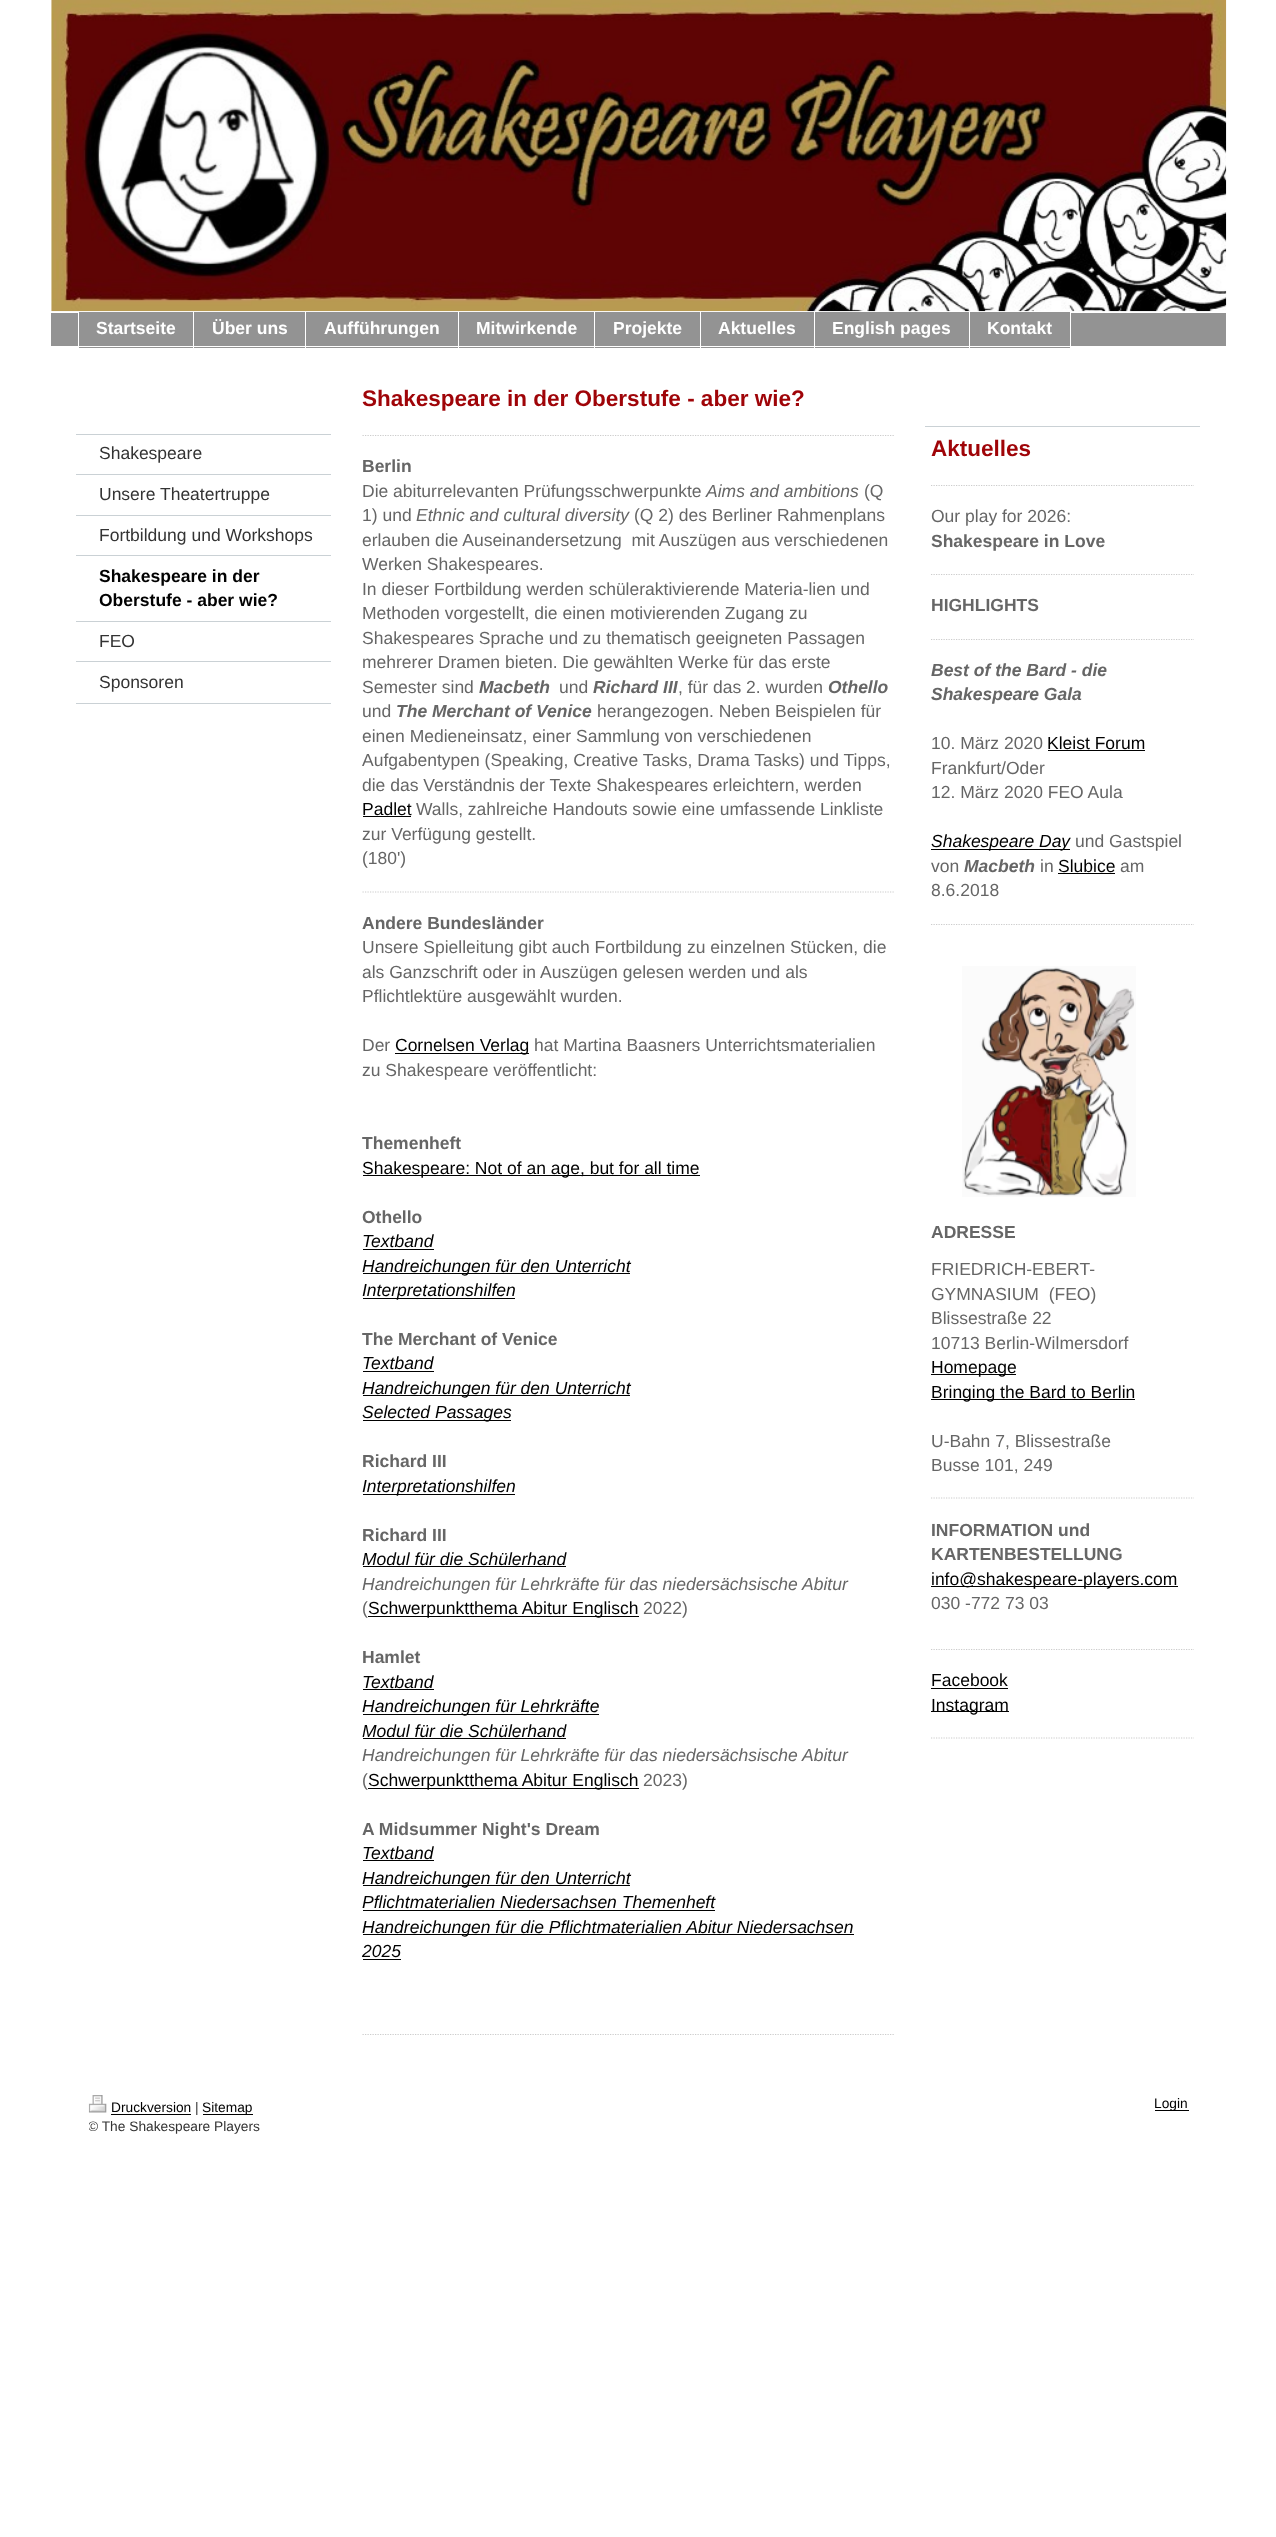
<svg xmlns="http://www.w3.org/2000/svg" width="1276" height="2537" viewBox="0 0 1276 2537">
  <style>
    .t1 { font: bold 17.5px Liberation Sans; fill: #fff; }
    .t2 { font: 17.5px Liberation Sans; fill: #333; }
    .t3 { font: bold 17.5px Liberation Sans; fill: #010101; }
    .t4 { font: bold 22.5px Liberation Sans; fill: #9f0408; }
    .t5 { font: bold 17.5px Liberation Sans; fill: #666; }
    .t6 { font: 17.5px Liberation Sans; fill: #666; }
    .t7 { font: italic 17.5px Liberation Sans; fill: #666; }
    .t8 { font: italic bold 17.5px Liberation Sans; fill: #666; }
    .t9 { font: 17.5px Liberation Sans; fill: #010101; }
    .t10 { font: italic 17.5px Liberation Sans; fill: #010101; }
    .t11 { font: 13.75px Liberation Sans; fill: #010101; }
    .t12 { font: 13.75px Liberation Sans; fill: #333; }
  </style>
  <defs>
    <clipPath id="clip1"><rect x="89" y="2095" width="1100" height="41"/></clipPath>
  </defs>
  <rect width="100%" height="100%" fill="#fff"/>
  <rect x="51" y="313" width="1175" height="33" fill="#939393"/>
  <rect x="78" y="311" width="1" height="35" fill="#fff"/>
  <rect x="193" y="311" width="1" height="37" fill="#fff"/>
  <rect x="305" y="311" width="1" height="37" fill="#fff"/>
  <rect x="458" y="311" width="1" height="37" fill="#fff"/>
  <rect x="594" y="311" width="1" height="37" fill="#fff"/>
  <rect x="700" y="311" width="1" height="37" fill="#fff"/>
  <rect x="814" y="311" width="1" height="37" fill="#fff"/>
  <rect x="969" y="311" width="1" height="37" fill="#fff"/>
  <rect x="1070" y="311" width="1" height="37" fill="#fff"/>
  <image x="51" y="0" width="1176" height="312" href="images/1.png"/>
  <rect x="79" y="312" width="114" height="36" fill="#939393"/>
  <rect x="79" y="346" width="115" height="1" fill="#fff"/>
  <text x="96" y="334" class="t1">Startseite</text>
  <rect x="194" y="312" width="111" height="36" fill="#939393"/>
  <rect x="194" y="346" width="112" height="1" fill="#fff"/>
  <text x="212" y="334" class="t1">Über uns</text>
  <rect x="306" y="312" width="152" height="36" fill="#939393"/>
  <rect x="306" y="346" width="153" height="1" fill="#fff"/>
  <text x="324" y="334" class="t1">Aufführungen</text>
  <rect x="459" y="312" width="135" height="36" fill="#939393"/>
  <rect x="459" y="346" width="136" height="1" fill="#fff"/>
  <text x="476" y="334" class="t1">Mitwirkende</text>
  <rect x="595" y="312" width="105" height="36" fill="#939393"/>
  <rect x="595" y="346" width="106" height="1" fill="#fff"/>
  <text x="613" y="334" class="t1">Projekte</text>
  <rect x="701" y="312" width="113" height="36" fill="#939393"/>
  <rect x="701" y="346" width="114" height="1" fill="#fff"/>
  <text x="718" y="334" class="t1">Aktuelles</text>
  <rect x="815" y="312" width="154" height="36" fill="#939393"/>
  <rect x="815" y="346" width="155" height="1" fill="#fff"/>
  <text x="832" y="334" class="t1">English pages</text>
  <rect x="970" y="312" width="100" height="36" fill="#939393"/>
  <rect x="970" y="346" width="101" height="1" fill="#fff"/>
  <text x="987" y="334" class="t1">Kontakt</text>
  <rect x="76" y="434" width="255" height="1" fill="#cad1d5"/>
  <rect x="76" y="474" width="255" height="1" fill="#cad1d5"/>
  <text x="99" y="459" class="t2">Shakespeare</text>
  <rect x="76" y="515" width="255" height="1" fill="#cad1d5"/>
  <text x="99" y="500" class="t2">Unsere Theatertruppe</text>
  <rect x="76" y="555" width="255" height="1" fill="#cad1d5"/>
  <text x="99" y="541" class="t2">Fortbildung und Workshops</text>
  <rect x="76" y="621" width="255" height="1" fill="#cad1d5"/>
  <text x="99" y="582" class="t3">Shakespeare in der</text>
  <text x="99" y="606" class="t3">Oberstufe - aber wie?</text>
  <rect x="76" y="661" width="255" height="1" fill="#cad1d5"/>
  <text x="99" y="647" class="t2">FEO</text>
  <rect x="76" y="703" width="255" height="1" fill="#cad1d5"/>
  <text x="99" y="688" class="t2">Sponsoren</text>
  <text x="362" y="406" class="t4">Shakespeare in der Oberstufe - aber wie?</text>
  <path d="M362.5 435.5H894" fill="none" stroke="#ccc" stroke-width="1.2" stroke-dasharray="1.25 1.25"/>
  <text x="362" y="472" class="t5">Berlin</text>
  <text x="362" y="497" class="t6">Die abiturrelevanten Prüfungsschwerpunkte</text>
  <text x="706" y="497" class="t7">Aims and ambitions</text>
  <text x="864" y="497" class="t6">(Q</text>
  <text x="362" y="521" class="t6">1) und</text>
  <text x="416" y="521" class="t7">Ethnic and cultural diversity</text>
  <text x="634" y="521" class="t6">(Q 2) des Berliner Rahmenplans</text>
  <text x="362" y="546" class="t6" xml:space="preserve">erlauben die Auseinandersetzung  mit Auszügen aus verschiedenen</text>
  <text x="362" y="570" class="t6">Werken Shakespeares.</text>
  <text x="362" y="595" class="t6">In dieser Fortbildung werden schüleraktivierende Materia-lien und</text>
  <text x="362" y="619" class="t6">Methoden vorgestellt, die einen motivierenden Zugang zu</text>
  <text x="362" y="644" class="t6">Shakespeares Sprache und zu thematisch geeigneten Passagen</text>
  <text x="362" y="668" class="t6">mehrerer Dramen bieten. Die gewählten Werke für das erste</text>
  <text x="362" y="693" class="t6">Semester sind</text>
  <text x="479" y="693" class="t8">Macbeth</text>
  <text x="559" y="693" class="t6">und</text>
  <text x="593" y="693" class="t8">Richard III</text>
  <text x="678" y="693" class="t6">, für das 2. wurden</text>
  <text x="828" y="693" class="t8">Othello</text>
  <text x="362" y="717" class="t6">und</text>
  <text x="396" y="717" class="t8">The Merchant of Venice</text>
  <text x="597" y="717" class="t6">herangezogen. Neben Beispielen für</text>
  <text x="362" y="742" class="t6">einen Medieneinsatz, einer Sammlung von verschiedenen</text>
  <text x="362" y="766" class="t6">Aufgabentypen (Speaking, Creative Tasks, Drama Tasks) und Tipps,</text>
  <text x="362" y="791" class="t6">die das Verständnis der Texte Shakespeares erleichtern, werden</text>
  <text x="362" y="815" class="t9">Padlet</text>
  <rect x="363" y="816" width="48" height="1" fill="#000"/>
  <text x="416" y="815" class="t6">Walls, zahlreiche Handouts sowie eine umfassende Linkliste</text>
  <text x="362" y="840" class="t6">zur Verfügung gestellt.</text>
  <text x="362" y="864" class="t6">(180')</text>
  <path d="M362.5 892H894" fill="none" stroke="#ccc" stroke-width="1.2" stroke-dasharray="1.25 1.25"/>
  <text x="362" y="929" class="t5">Andere Bundesländer</text>
  <text x="362" y="953" class="t6">Unsere Spielleitung gibt auch Fortbildung zu einzelnen Stücken, die</text>
  <text x="362" y="978" class="t6">als Ganzschrift oder in Auszügen gelesen werden und als</text>
  <text x="362" y="1002" class="t6">Pflichtlektüre ausgewählt wurden.</text>
  <text x="362" y="1051" class="t6">Der</text>
  <rect x="395" y="1053" width="134" height="1" fill="#000"/>
  <text x="395" y="1051" class="t9">Cornelsen Verlag</text>
  <text x="534" y="1051" class="t6">hat Martina Baasners Unterrichtsmaterialien</text>
  <text x="362" y="1076" class="t6">zu Shakespeare veröffentlicht:</text>
  <text x="362" y="1149" class="t5">Themenheft</text>
  <rect x="363" y="1175" width="337" height="1" fill="#000"/>
  <text x="362" y="1174" class="t9">Shakespeare: Not of an age, but for all time</text>
  <text x="362" y="1223" class="t5">Othello</text>
  <text x="362" y="1247" class="t10">Textband</text>
  <rect x="363" y="1249" width="71" height="1" fill="#000"/>
  <rect x="363" y="1273" width="267" height="1" fill="#000"/>
  <text x="362" y="1272" class="t10">Handreichungen für den Unterricht</text>
  <rect x="363" y="1298" width="152" height="1" fill="#000"/>
  <text x="362" y="1296" class="t10">Interpretationshilfen</text>
  <text x="362" y="1345" class="t5">The Merchant of Venice</text>
  <text x="362" y="1369" class="t10">Textband</text>
  <rect x="363" y="1371" width="71" height="1" fill="#000"/>
  <rect x="363" y="1395" width="267" height="1" fill="#000"/>
  <text x="362" y="1394" class="t10">Handreichungen für den Unterricht</text>
  <rect x="363" y="1420" width="148" height="1" fill="#000"/>
  <text x="362" y="1418" class="t10">Selected Passages</text>
  <text x="362" y="1467" class="t5">Richard III</text>
  <rect x="363" y="1494" width="152" height="1" fill="#000"/>
  <text x="362" y="1492" class="t10">Interpretationshilfen</text>
  <text x="362" y="1541" class="t5">Richard III</text>
  <text x="362" y="1565" class="t10">Modul für die Schülerhand</text>
  <rect x="363" y="1566" width="203" height="1" fill="#000"/>
  <text x="362" y="1590" class="t7">Handreichungen für Lehrkräfte für das niedersächsische Abitur</text>
  <text x="362" y="1614" class="t6">(</text>
  <rect x="368" y="1616" width="271" height="1" fill="#000"/>
  <text x="368" y="1614" class="t9">Schwerpunktthema Abitur Englisch</text>
  <text x="643" y="1614" class="t6">2022)</text>
  <text x="362" y="1663" class="t5">Hamlet</text>
  <text x="362" y="1688" class="t10">Textband</text>
  <rect x="363" y="1689" width="71" height="1" fill="#000"/>
  <rect x="363" y="1714" width="236" height="1" fill="#000"/>
  <text x="362" y="1712" class="t10">Handreichungen für Lehrkräfte</text>
  <text x="362" y="1737" class="t10">Modul für die Schülerhand</text>
  <rect x="363" y="1738" width="203" height="1" fill="#000"/>
  <text x="362" y="1761" class="t7">Handreichungen für Lehrkräfte für das niedersächsische Abitur</text>
  <text x="362" y="1786" class="t6">(</text>
  <rect x="368" y="1788" width="271" height="1" fill="#000"/>
  <text x="368" y="1786" class="t9">Schwerpunktthema Abitur Englisch</text>
  <text x="643" y="1786" class="t6">2023)</text>
  <text x="362" y="1835" class="t5">A Midsummer Night's Dream</text>
  <text x="362" y="1859" class="t10">Textband</text>
  <rect x="363" y="1860" width="71" height="1" fill="#000"/>
  <rect x="363" y="1885" width="267" height="1" fill="#000"/>
  <text x="362" y="1884" class="t10">Handreichungen für den Unterricht</text>
  <text x="362" y="1908" class="t10">Pflichtmaterialien Niedersachsen Themenheft</text>
  <rect x="363" y="1910" width="352" height="1" fill="#000"/>
  <rect x="363" y="1934" width="491" height="1" fill="#000"/>
  <text x="362" y="1933" class="t10">Handreichungen für die Pflichtmaterialien Abitur Niedersachsen</text>
  <text x="362" y="1957" class="t10">2025</text>
  <rect x="363" y="1959" width="38" height="1" fill="#000"/>
  <path d="M362.5 2034.5H894" fill="none" stroke="#ccc" stroke-width="1.2" stroke-dasharray="1.25 1.25"/>
  <rect x="925" y="426" width="275" height="1" fill="#cad1d5"/>
  <text x="931" y="456" class="t4">Aktuelles</text>
  <path d="M931 485.5H1194" fill="none" stroke="#ccc" stroke-width="1.2" stroke-dasharray="1.25 1.25"/>
  <text x="931" y="522" class="t6">Our play for 2026:</text>
  <text x="931" y="547" class="t5">Shakespeare in Love</text>
  <path d="M931 574.5H1194" fill="none" stroke="#ccc" stroke-width="1.2" stroke-dasharray="1.25 1.25"/>
  <text x="931" y="611" class="t5">HIGHLIGHTS</text>
  <path d="M931 639.5H1194" fill="none" stroke="#ccc" stroke-width="1.2" stroke-dasharray="1.25 1.25"/>
  <text x="931" y="676" class="t8">Best of the Bard - die</text>
  <text x="931" y="700" class="t8">Shakespeare Gala</text>
  <text x="931" y="749" class="t6">10. März 2020</text>
  <text x="1047" y="749" class="t9">Kleist Forum</text>
  <rect x="1048" y="750" width="97" height="1" fill="#000"/>
  <text x="931" y="774" class="t6">Frankfurt/Oder</text>
  <text x="931" y="798" class="t6">12. März 2020 FEO Aula</text>
  <rect x="931" y="849" width="139" height="1" fill="#000"/>
  <text x="931" y="847" class="t10">Shakespeare Day</text>
  <text x="1075" y="847" class="t6">und Gastspiel</text>
  <text x="931" y="872" class="t6">von</text>
  <text x="964" y="872" class="t8">Macbeth</text>
  <text x="1040" y="872" class="t6">in</text>
  <text x="1058" y="872" class="t9">Slubice</text>
  <rect x="1058" y="873" width="57" height="1" fill="#000"/>
  <text x="1120" y="872" class="t6">am</text>
  <text x="931" y="896" class="t6">8.6.2018</text>
  <path d="M931 924.5H1194" fill="none" stroke="#ccc" stroke-width="1.2" stroke-dasharray="1.25 1.25"/>
  <image x="962" y="966" width="174" height="231" href="images/2.png"/>
  <text x="931" y="1238" class="t5">ADRESSE</text>
  <text x="931" y="1275" class="t6">FRIEDRICH-EBERT-</text>
  <text x="931" y="1300" class="t6" xml:space="preserve">GYMNASIUM  (FEO)</text>
  <text x="931" y="1324" class="t6">Blissestraße 22</text>
  <text x="931" y="1349" class="t6">10713 Berlin-Wilmersdorf</text>
  <rect x="931" y="1374" width="85" height="1" fill="#000"/>
  <text x="931" y="1373" class="t9">Homepage</text>
  <rect x="931" y="1399" width="204" height="1" fill="#000"/>
  <text x="931" y="1398" class="t9">Bringing the Bard to Berlin</text>
  <text x="931" y="1447" class="t6">U-Bahn 7, Blissestraße</text>
  <text x="931" y="1471" class="t6">Busse 101, 249</text>
  <path d="M931 1498H1194" fill="none" stroke="#ccc" stroke-width="1.2" stroke-dasharray="1.25 1.25"/>
  <text x="931" y="1536" class="t5">INFORMATION und</text>
  <text x="931" y="1560" class="t5">KARTENBESTELLUNG</text>
  <rect x="931" y="1586" width="247" height="1" fill="#000"/>
  <text x="931" y="1585" class="t9">info@shakespeare-players.com</text>
  <text x="931" y="1609" class="t6">030 -772 73 03</text>
  <path d="M931 1649.5H1194" fill="none" stroke="#ccc" stroke-width="1.2" stroke-dasharray="1.25 1.25"/>
  <text x="931" y="1686" class="t9">Facebook</text>
  <rect x="931" y="1688" width="77" height="1" fill="#000"/>
  <rect x="931" y="1711" width="78" height="1" fill="#000"/>
  <text x="931" y="1711" class="t9">Instagram</text>
  <path d="M931 1738H1194" fill="none" stroke="#ccc" stroke-width="1.2" stroke-dasharray="1.25 1.25"/>
  <image x="88" y="2095" width="19" height="18" href="images/3.png"/>
  <text x="111" y="2112" class="t11">Druckversion</text>
  <rect x="111" y="2114" width="80" height="1" fill="#000"/>
  <text x="195" y="2112" class="t12">|</text>
  <rect x="203" y="2114" width="50" height="1" fill="#000"/>
  <text x="202" y="2112" class="t11">Sitemap</text>
  <g clip-path="url(#clip1)">
    <text x="88" y="2131" class="t12">© The Shakespeare Players</text>
  </g>
  <rect x="1155" y="2110" width="34" height="1" fill="#000"/>
  <text x="1154" y="2108" class="t11">Login</text>
</svg>
